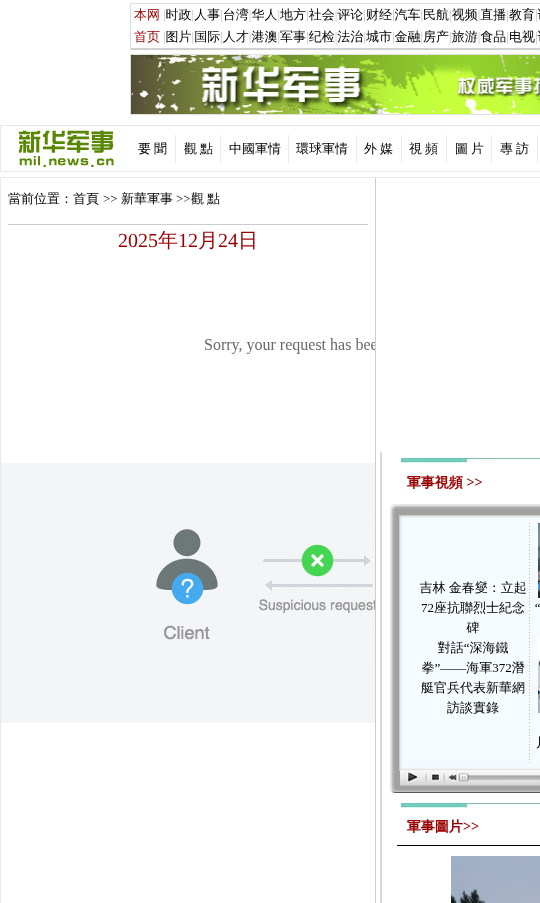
<svg xmlns="http://www.w3.org/2000/svg" width="540" height="903" viewBox="0 0 540 903">
  <style>
    .t1 { font: 500 13px WenQuanYi Zen Hei; fill: #000; }
    .t2 { font: 13px Liberation Serif; fill: #000; }
    .t3 { font: 20px Liberation Serif; fill: #980000; }
    .t4 { font: 500 20px WenQuanYi Zen Hei; fill: #980000; }
  </style>
  <rect width="100%" height="100%" fill="#fff"/>
  <image x="130" y="3" width="410" height="47" href="images/1.png"/>
  <rect x="130.5" y="54.5" width="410" height="60" fill="none" stroke="#e1e1e1"/>
  <image x="131" y="55" width="409" height="59" href="images/2.png"/>
  <rect x="0.5" y="125.5" width="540" height="46" fill="none" stroke="#e9e9e9"/>
  <image x="19" y="129" width="96" height="39" href="images/3.png"/>
  <rect x="175" y="135" width="1" height="28" fill="#eaeaea"/>
  <text x="138" y="153" word-spacing="-1" class="t1">要 聞</text>
  <rect x="220" y="135" width="1" height="28" fill="#eaeaea"/>
  <text x="184" y="153" word-spacing="-1" class="t1">觀 點</text>
  <rect x="288" y="135" width="1" height="28" fill="#eaeaea"/>
  <text x="229" y="153" class="t1">中國軍情</text>
  <rect x="356" y="135" width="1" height="28" fill="#eaeaea"/>
  <text x="296" y="153" class="t1">環球軍情</text>
  <rect x="401" y="135" width="1" height="28" fill="#eaeaea"/>
  <text x="364" y="153" word-spacing="-1" class="t1">外 媒</text>
  <rect x="446" y="135" width="1" height="28" fill="#eaeaea"/>
  <text x="409" y="153" word-spacing="-1" class="t1">視 頻</text>
  <rect x="491" y="135" width="1" height="28" fill="#eaeaea"/>
  <text x="455" y="153" word-spacing="-1" class="t1">圖 片</text>
  <rect x="537" y="135" width="1" height="28" fill="#eaeaea"/>
  <text x="500" y="153" word-spacing="-1" class="t1">專 訪</text>
  <rect x="0.5" y="177.5" width="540" height="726" fill="none" stroke="#e9e9e9"/>
  <text x="8" y="203" class="t1">當前位置：首頁</text>
  <text x="103" y="203" class="t2">&gt;&gt;</text>
  <text x="121" y="203" class="t1">新華軍事</text>
  <text x="176" y="203" class="t2">&gt;&gt;</text>
  <text x="191" y="203" word-spacing="-1" class="t1">觀 點</text>
  <image x="8" y="224" width="360" height="1" href="images/4.png"/>
  <text x="118" y="247" class="t3">2025</text>
  <text x="158" y="247" class="t4">年</text>
  <text x="178" y="247" class="t3">12</text>
  <text x="198" y="247" class="t4">月</text>
  <text x="218" y="247" class="t3">24</text>
  <text x="238" y="247" class="t4">日</text>
  <image x="1" y="338" width="374" height="385" href="images/5.png"/>
  <rect x="375" y="178" width="1" height="725" fill="#ccc"/>
  <image x="380" y="452" width="160" height="451" href="images/6.png"/>
</svg>
